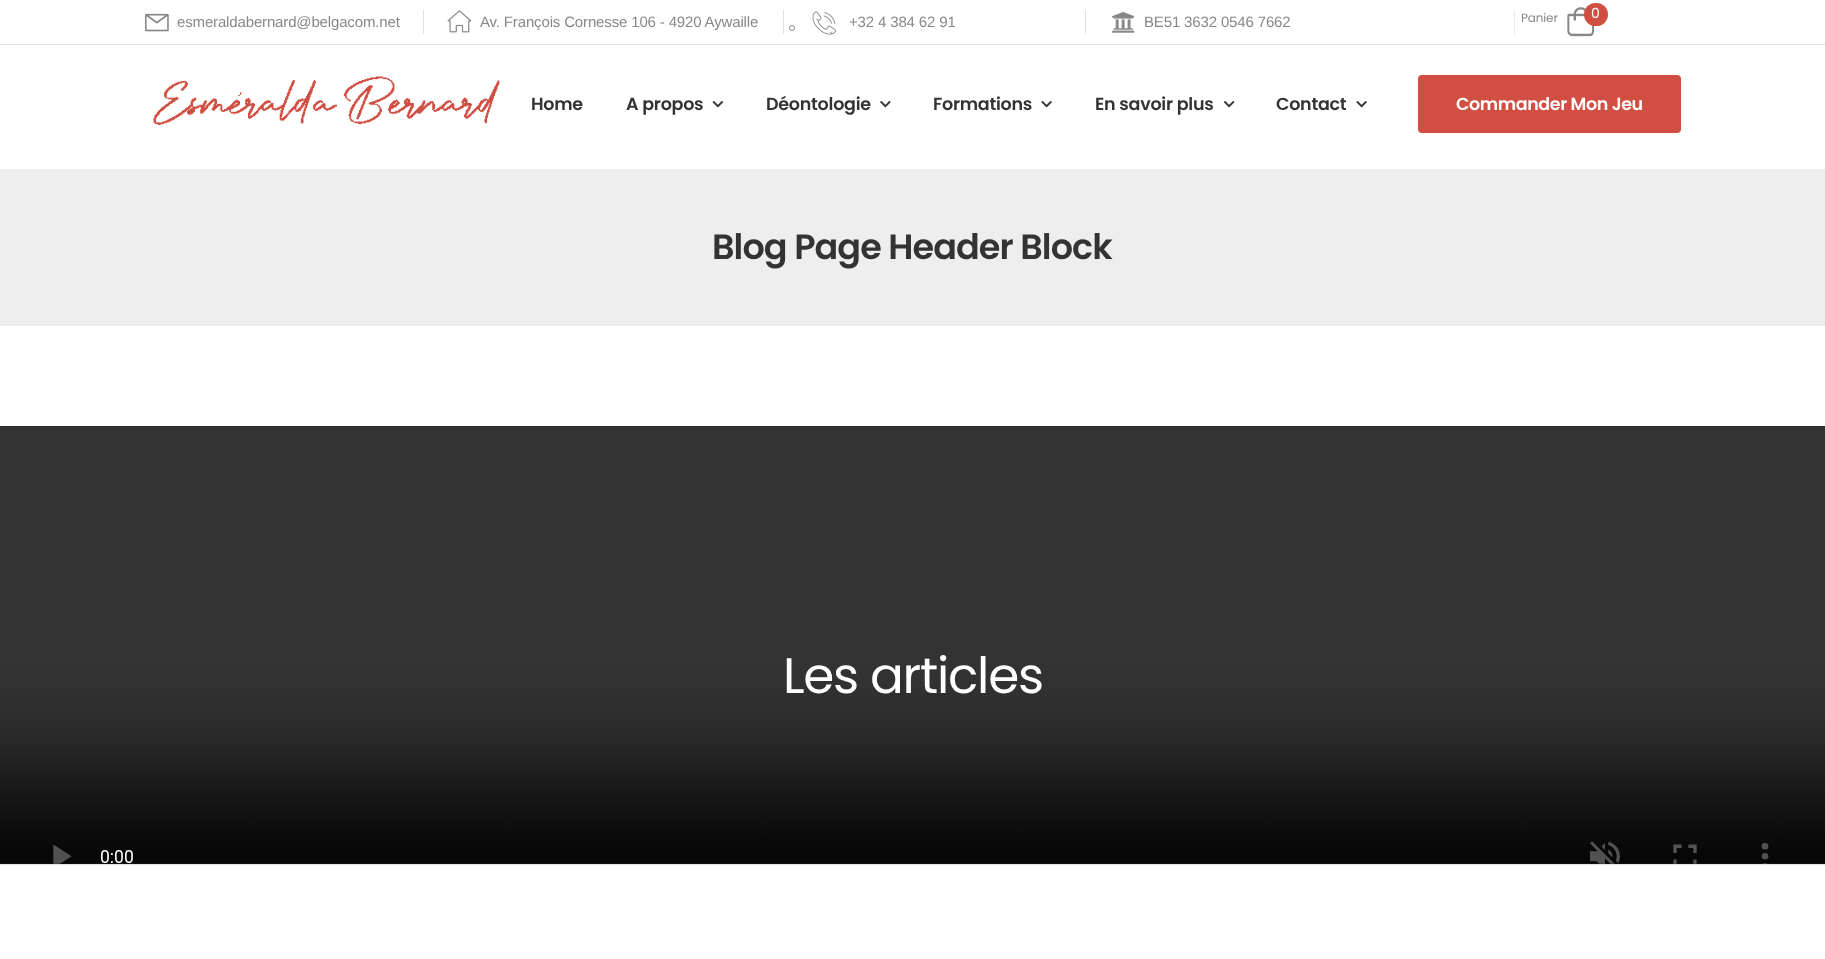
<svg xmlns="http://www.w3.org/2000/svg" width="1825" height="959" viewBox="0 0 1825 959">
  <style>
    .t1 { font: 15px Liberation Sans; letter-spacing: -0.15px; fill: #888; }
    .t2 { font: 12px Poppins; letter-spacing: -0.15px; fill: #888; }
    .t3 { font: 14px Poppins; letter-spacing: -0.15px; fill: #fff; }
    .t4 { font: 600 17.5px Poppins; letter-spacing: -0.25px; fill: #333; }
    .t5 { font: 600 17.5px Poppins; letter-spacing: -0.4px; fill: #fff; }
    .t6 { font: 600 35px Poppins; letter-spacing: -0.9px; fill: #333; }
    .t7 { font: 50px Poppins; letter-spacing: -1.25px; fill: #fff; }
  </style>
  <rect width="100%" height="100%" fill="#fff"/>
  <rect x="0" y="44" width="1825" height="1" fill="#e1e1e1"/>
  <image x="145" y="13" width="24" height="19" href="images/1.png"/>
  <text x="177" y="27" class="t1">esmeraldabernard@belgacom.net</text>
  <rect x="423" y="10" width="1" height="24" fill="#e1e1e1"/>
  <image x="447" y="10" width="25" height="23" href="images/2.png"/>
  <text x="480" y="27" class="t1">Av. François Cornesse 106 - 4920 Aywaille</text>
  <rect x="783" y="10" width="1" height="24" fill="#e1e1e1"/>
  <circle cx="792" cy="28" r="2.5" fill="none" stroke="#888"/>
  <image x="812" y="11" width="25" height="24" href="images/3.png"/>
  <text x="849" y="27" class="t1">+32 4 384 62 91</text>
  <rect x="1085" y="10" width="1" height="24" fill="#e1e1e1"/>
  <image x="1112" y="12" width="23" height="21" href="images/4.png"/>
  <text x="1144" y="27" class="t1">BE51 3632 0546 7662</text>
  <rect x="1514" y="10" width="1" height="25" fill="#ebebeb"/>
  <text x="1521" y="22" class="t2">Panier</text>
  <image x="1567" y="7" width="28" height="30" href="images/5.png"/>
  <rect x="1584" y="3" width="24" height="23" rx="11.5" fill="#d14f42"/>
  <text x="1591" y="18" class="t3">0</text>
  <image x="153" y="76" width="347" height="49" href="images/6.png"/>
  <text x="531" y="110" class="t4">Home</text>
  <text x="626" y="110" class="t4">A propos</text>
  <image x="712" y="101" width="11" height="7" href="images/7.png"/>
  <text x="766" y="110" class="t4">Déontologie</text>
  <image x="880" y="101" width="11" height="7" href="images/8.png"/>
  <text x="933" y="110" class="t4">Formations</text>
  <image x="1041" y="101" width="11" height="7" href="images/9.png"/>
  <text x="1095" y="110" class="t4">En savoir plus</text>
  <image x="1223" y="101" width="12" height="7" href="images/10.png"/>
  <text x="1276" y="110" class="t4">Contact</text>
  <image x="1356" y="101" width="11" height="7" href="images/9.png"/>
  <rect x="1419.5" y="76.5" width="260" height="55" rx="2.5" fill="#d14f42" stroke="#d14f42" stroke-width="3"/>
  <text x="1456" y="110" class="t5">Commander Mon Jeu</text>
  <rect x="0" y="169" width="1825" height="157" fill="#eee"/>
  <text x="712" y="259" class="t6">Blog Page Header Block</text>
  <rect x="0" y="426" width="1825" height="438" fill="#1f1f1f"/>
  <image x="0" y="426" width="1825" height="438" href="images/11.png"/>
  <text x="783" y="693" class="t7">Les articles</text>
  <rect x="0" y="864" width="1825" height="1" fill="#e1e1e1"/>
</svg>
